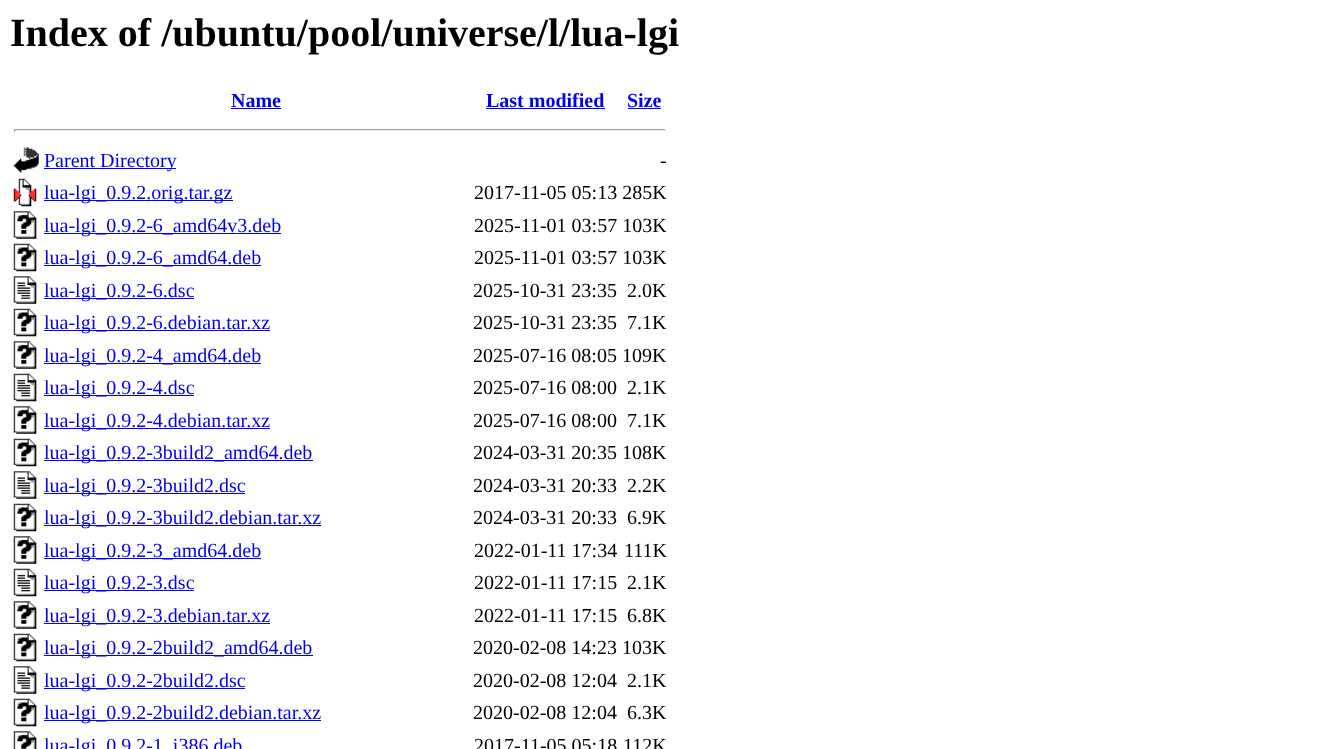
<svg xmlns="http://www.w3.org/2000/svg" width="1320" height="749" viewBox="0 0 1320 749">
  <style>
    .t1 { font: bold 40px Liberation Serif; fill: #000; }
    .t2 { font: bold 20px Liberation Serif; fill: #00e; }
    .t3 { font: 20px Liberation Serif; fill: #00e; }
    .t4 { font: 20px Liberation Serif; fill: #000; }
  </style>
  <rect width="100%" height="100%" fill="#fff"/>
  <text x="10" y="46" class="t1">Index of /ubuntu/pool/universe/l/lua-lgi</text>
  <text x="231" y="107" class="t2">Name</text>
  <rect x="231" y="108" width="50" height="1" fill="#00e"/>
  <text x="486" y="107" class="t2">Last modified</text>
  <rect x="486" y="108" width="119" height="1" fill="#00e"/>
  <text x="627" y="107" class="t2">Size</text>
  <rect x="628" y="108" width="33" height="1" fill="#00e"/>
  <rect x="14" y="129" width="652" height="1" fill="#9f9f9f"/>
  <rect x="665" y="129" width="1" height="3" fill="#eee"/>
  <rect x="14" y="130" width="652" height="1" fill="#eee"/>
  <rect x="14" y="129" width="1" height="3" fill="#9f9f9f"/>
  <image x="13" y="147" width="26" height="26" href="images/1.png"/>
  <rect x="44" y="168" width="132" height="1" fill="#00e"/>
  <text x="44" y="167" class="t3">Parent Directory</text>
  <text x="660" y="167" class="t4">-</text>
  <image x="13" y="178" width="24" height="29" href="images/2.png"/>
  <rect x="44" y="200" width="189" height="1" fill="#00e"/>
  <text x="44" y="199" class="t3">lua-lgi_0.9.2.orig.tar.gz</text>
  <text x="474" y="199" class="t4">2017-11-05 05:13 285K</text>
  <image x="13" y="211" width="24" height="28" href="images/3.png"/>
  <rect x="44" y="233" width="237" height="1" fill="#00e"/>
  <text x="44" y="232" class="t3">lua-lgi_0.9.2-6_amd64v3.deb</text>
  <text x="474" y="232" class="t4">2025-11-01 03:57 103K</text>
  <image x="13" y="243" width="24" height="29" href="images/4.png"/>
  <rect x="44" y="265" width="217" height="1" fill="#00e"/>
  <text x="44" y="264" class="t3">lua-lgi_0.9.2-6_amd64.deb</text>
  <text x="474" y="264" class="t4">2025-11-01 03:57 103K</text>
  <image x="13" y="276" width="24" height="28" href="images/5.png"/>
  <rect x="44" y="298" width="150" height="1" fill="#00e"/>
  <text x="44" y="297" class="t3">lua-lgi_0.9.2-6.dsc</text>
  <text x="473" y="297" class="t4">2025-10-31 23:35</text>
  <text x="627" y="297" class="t4">2.0K</text>
  <image x="13" y="308" width="24" height="29" href="images/4.png"/>
  <rect x="44" y="330" width="226" height="1" fill="#00e"/>
  <text x="44" y="329" class="t3">lua-lgi_0.9.2-6.debian.tar.xz</text>
  <text x="473" y="329" class="t4">2025-10-31 23:35</text>
  <text x="627" y="329" class="t4">7.1K</text>
  <image x="13" y="341" width="24" height="28" href="images/3.png"/>
  <rect x="44" y="363" width="217" height="1" fill="#00e"/>
  <text x="44" y="362" class="t3">lua-lgi_0.9.2-4_amd64.deb</text>
  <text x="473" y="362" class="t4">2025-07-16 08:05 109K</text>
  <image x="13" y="373" width="24" height="29" href="images/6.png"/>
  <rect x="44" y="395" width="150" height="1" fill="#00e"/>
  <text x="44" y="394" class="t3">lua-lgi_0.9.2-4.dsc</text>
  <text x="473" y="394" class="t4">2025-07-16 08:00</text>
  <text x="627" y="394" class="t4">2.1K</text>
  <image x="13" y="406" width="24" height="28" href="images/3.png"/>
  <rect x="44" y="428" width="226" height="1" fill="#00e"/>
  <text x="44" y="427" class="t3">lua-lgi_0.9.2-4.debian.tar.xz</text>
  <text x="473" y="427" class="t4">2025-07-16 08:00</text>
  <text x="627" y="427" class="t4">7.1K</text>
  <image x="13" y="438" width="24" height="29" href="images/4.png"/>
  <rect x="44" y="460" width="269" height="1" fill="#00e"/>
  <text x="44" y="459" class="t3">lua-lgi_0.9.2-3build2_amd64.deb</text>
  <text x="473" y="459" class="t4">2024-03-31 20:35 108K</text>
  <image x="13" y="471" width="24" height="28" href="images/7.png"/>
  <rect x="44" y="493" width="201" height="1" fill="#00e"/>
  <text x="44" y="492" class="t3">lua-lgi_0.9.2-3build2.dsc</text>
  <text x="473" y="492" class="t4">2024-03-31 20:33</text>
  <text x="627" y="492" class="t4">2.2K</text>
  <image x="13" y="503" width="24" height="29" href="images/4.png"/>
  <rect x="44" y="525" width="277" height="1" fill="#00e"/>
  <text x="44" y="524" class="t3">lua-lgi_0.9.2-3build2.debian.tar.xz</text>
  <text x="473" y="524" class="t4">2024-03-31 20:33</text>
  <text x="627" y="524" class="t4">6.9K</text>
  <image x="13" y="536" width="24" height="28" href="images/3.png"/>
  <rect x="44" y="558" width="217" height="1" fill="#00e"/>
  <text x="44" y="557" class="t3">lua-lgi_0.9.2-3_amd64.deb</text>
  <text x="474" y="557" class="t4">2022-01-11 17:34</text>
  <text x="624" y="557" class="t4">111K</text>
  <image x="13" y="568" width="24" height="29" href="images/6.png"/>
  <rect x="44" y="590" width="150" height="1" fill="#00e"/>
  <text x="44" y="589" class="t3">lua-lgi_0.9.2-3.dsc</text>
  <text x="474" y="589" class="t4">2022-01-11 17:15</text>
  <text x="627" y="589" class="t4">2.1K</text>
  <image x="13" y="601" width="24" height="28" href="images/3.png"/>
  <rect x="44" y="623" width="226" height="1" fill="#00e"/>
  <text x="44" y="622" class="t3">lua-lgi_0.9.2-3.debian.tar.xz</text>
  <text x="474" y="622" class="t4">2022-01-11 17:15</text>
  <text x="627" y="622" class="t4">6.8K</text>
  <image x="13" y="633" width="24" height="29" href="images/4.png"/>
  <rect x="44" y="655" width="269" height="1" fill="#00e"/>
  <text x="44" y="654" class="t3">lua-lgi_0.9.2-2build2_amd64.deb</text>
  <text x="473" y="654" class="t4">2020-02-08 14:23 103K</text>
  <image x="13" y="666" width="24" height="28" href="images/7.png"/>
  <rect x="44" y="688" width="201" height="1" fill="#00e"/>
  <text x="44" y="687" class="t3">lua-lgi_0.9.2-2build2.dsc</text>
  <text x="473" y="687" class="t4">2020-02-08 12:04</text>
  <text x="627" y="687" class="t4">2.1K</text>
  <image x="13" y="698" width="24" height="29" href="images/4.png"/>
  <rect x="44" y="720" width="277" height="1" fill="#00e"/>
  <text x="44" y="719" class="t3">lua-lgi_0.9.2-2build2.debian.tar.xz</text>
  <text x="473" y="719" class="t4">2020-02-08 12:04</text>
  <text x="627" y="719" class="t4">6.3K</text>
  <image x="13" y="731" width="24" height="18" href="images/8.png"/>
  <text x="44" y="752" class="t3">lua-lgi_0.9.2-1_i386.deb</text>
  <text x="474" y="752" class="t4">2017-11-05 05:18</text>
  <text x="623" y="752" class="t4">112K</text>
</svg>
